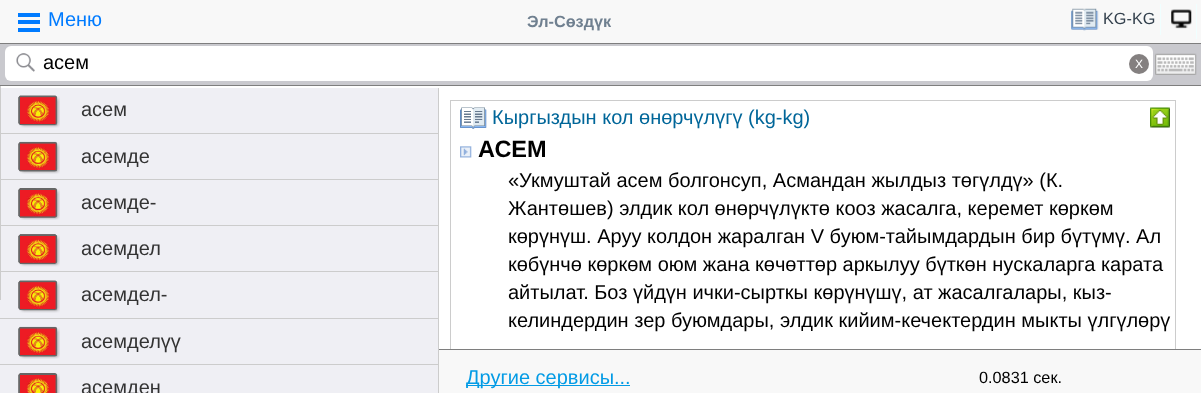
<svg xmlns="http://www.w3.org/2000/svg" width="1201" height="393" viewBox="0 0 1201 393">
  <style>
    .t1 { font: 20px Liberation Sans; fill: #007bff; }
    .t2 { font: bold 16.25px Liberation Sans; fill: #708090; }
    .t3 { font: 16.25px Liberation Sans; fill: #33404d; }
    .t4 { font: 20px Liberation Sans; fill: #000; }
    .t5 { font: 12px Liberation Sans; fill: #fff; }
    .t6 { font: 20px Liberation Sans; fill: #333; }
    .t7 { font: 20px Liberation Sans; fill: #069; }
    .t8 { font: bold 23.5px Liberation Sans; fill: #000; }
    .t9 { font: 20px Liberation Sans; fill: #039be5; }
    .t10 { font: 16.25px Liberation Sans; fill: #000; }
  </style>
  <rect width="100%" height="100%" fill="#fff"/>
  <rect x="0" y="0" width="1201" height="43" fill="#f8f8f8"/>
  <rect x="0" y="43" width="1201" height="1" fill="#7e7e7e"/>
  <rect x="18" y="13" width="22" height="4" fill="#007bff"/>
  <rect x="18" y="20" width="22" height="4" fill="#007bff"/>
  <rect x="18" y="28" width="22" height="4" fill="#007bff"/>
  <text x="48" y="26" class="t1">Меню</text>
  <text x="527" y="27" class="t2">Эл-Сөздүк</text>
  <rect x="1160" y="4" width="1" height="31" fill="#f0ffff"/>
  <image x="1071" y="8" width="28" height="23" href="images/1.png"/>
  <text x="1103" y="24" class="t3">KG-KG</text>
  <rect x="1196" y="4" width="1" height="35" fill="#f0ffff"/>
  <image x="1171" y="9" width="21" height="20" href="images/2.png"/>
  <rect x="0" y="44" width="1201" height="41" fill="#c9c9ce"/>
  <rect x="0" y="85" width="1201" height="1" fill="#7e7e7e"/>
  <rect x="5" y="46" width="1148" height="35" rx="6" fill="#fff"/>
  <image x="16" y="53" width="19" height="19" href="images/3.png"/>
  <text x="43" y="69" class="t4">асем</text>
  <circle cx="1139" cy="64" r="10" fill="#848080"/>
  <text x="1135" y="68" class="t5">X</text>
  <image x="1155" y="53" width="42" height="22" href="images/4.png"/>
  <rect x="0" y="88" width="438" height="305" fill="#efeff4"/>
  <rect x="0" y="133" width="438" height="1" fill="#ccc"/>
  <rect x="0" y="179" width="438" height="1" fill="#ccc"/>
  <rect x="0" y="225" width="438" height="1" fill="#ccc"/>
  <rect x="0" y="271" width="438" height="1" fill="#ccc"/>
  <rect x="0" y="86" width="1" height="214" fill="#ccc"/>
  <rect x="438" y="88" width="1" height="305" fill="#ccc"/>
  <image x="18" y="95" width="42" height="33" href="images/5.png"/>
  <text x="81" y="116" class="t6">асем</text>
  <image x="18" y="141" width="42" height="33" href="images/6.png"/>
  <text x="81" y="163" class="t6">асемде</text>
  <image x="18" y="188" width="42" height="32" href="images/7.png"/>
  <text x="81" y="209" class="t6">асемде-</text>
  <image x="18" y="234" width="42" height="33" href="images/8.png"/>
  <text x="81" y="255" class="t6">асемдел</text>
  <rect x="0" y="318" width="438" height="1" fill="#ccc"/>
  <image x="18" y="280" width="42" height="33" href="images/5.png"/>
  <text x="81" y="301" class="t6">асемдел-</text>
  <rect x="0" y="364" width="438" height="1" fill="#ccc"/>
  <image x="18" y="326" width="42" height="33" href="images/6.png"/>
  <text x="81" y="348" class="t6">асемделүү</text>
  <image x="18" y="373" width="42" height="20" href="images/9.png"/>
  <text x="81" y="394" class="t6">асемден</text>
  <rect x="450.5" y="100.5" width="725" height="290" fill="none" stroke="#ccc"/>
  <image x="460" y="107" width="27" height="22" href="images/10.png"/>
  <text x="492" y="124" class="t7">Кыргыздын кол өнөрчүлүгү (kg-kg)</text>
  <image x="1150" y="107" width="20" height="21" href="images/11.png"/>
  <image x="460" y="146" width="12" height="12" href="images/12.png"/>
  <text x="478" y="157" class="t8">АСЕМ</text>
  <text x="508" y="187" class="t4">«Укмуштай асем болгонсуп, Асмандан жылдыз төгүлдү» (К.</text>
  <text x="508" y="215" class="t4">Жантөшев) элдик кол өнөрчүлүктө кооз жасалга, керемет көркөм</text>
  <text x="508" y="243" class="t4">көрүнүш. Аруу колдон жаралган V буюм-тайымдардын бир бүтүмү. Ал</text>
  <text x="508" y="271" class="t4">көбүнчө көркөм оюм жана көчөттөр аркылуу бүткөн нускаларга карата</text>
  <text x="508" y="299" class="t4">айтылат. Боз үйдүн ички-сырткы көрүнүшү, ат жасалгалары, кыз-</text>
  <text x="508" y="327" class="t4">келиндердин зер буюмдары, элдик кийим-кечектердин мыкты үлгүлөрү</text>
  <rect x="439" y="350" width="762" height="43" fill="#f8f8f8"/>
  <rect x="439" y="349" width="762" height="1" fill="#7e7e7e"/>
  <rect x="466" y="385" width="164" height="1" fill="#039be5"/>
  <text x="466" y="384" class="t9">Другие сервисы...</text>
  <text x="979" y="383" class="t10">0.0831 сек.</text>
</svg>
